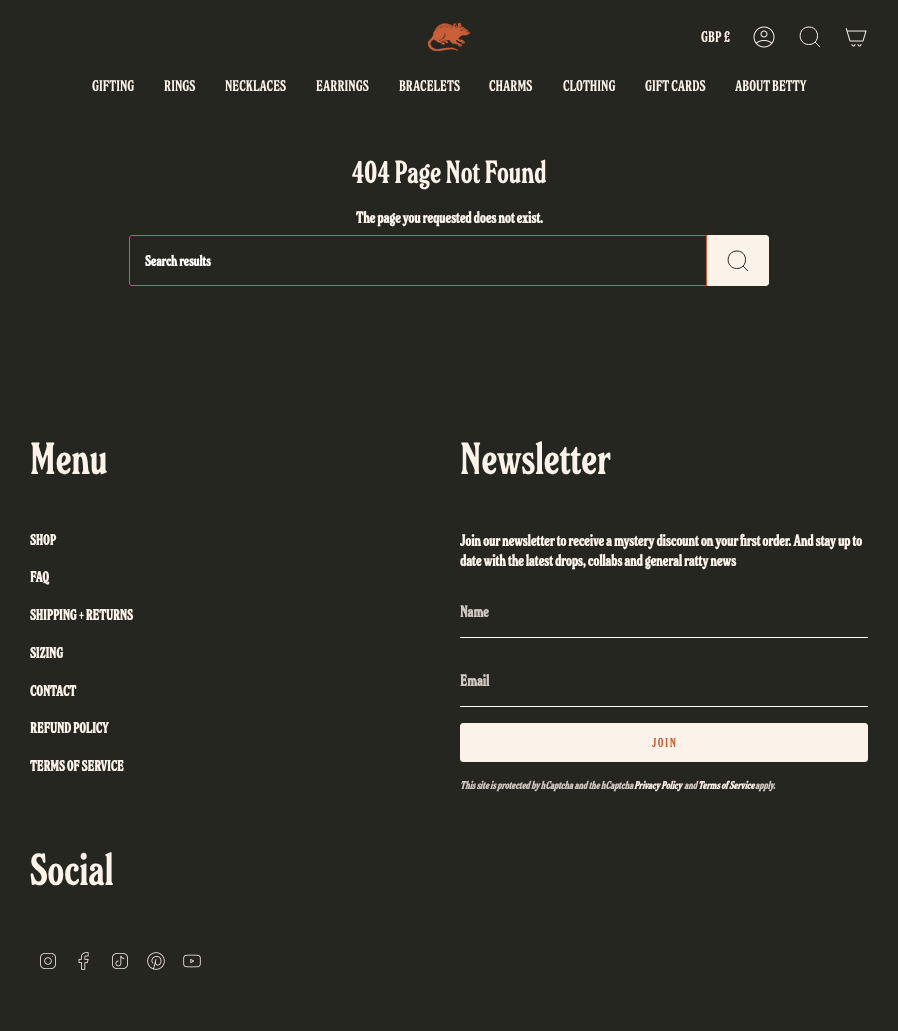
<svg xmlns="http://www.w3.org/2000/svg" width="898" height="1031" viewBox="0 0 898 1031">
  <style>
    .t1 { font: 15.5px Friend; fill: #fbf2e9; }
    .t2 { font: 32px Friend; fill: #fbf2e9; }
    .t3 { font: bold 16px Friend; fill: #fbf2e9; }
    .t4 { font: bold 15px Friend; fill: #fff; }
    .t5 { font: 45px Friend; fill: #fbf2e9; }
    .t6 { font: bold 15px Friend; fill: #fbf2e9; }
    .t7 { font: bold 16px Friend; fill: #d0c9c1; }
    .t8 { font: 13px Friend; letter-spacing: 1.5px; fill: #ca5e38; }
    .t9 { font: italic bold 11px Friend; fill: #d0c9c1; }
    .t10 { font: italic bold 11px Friend; fill: #fbf2e9; }
  </style>
  <rect width="100%" height="100%" fill="#262621"/>
  <image x="427" y="22" width="44" height="30" href="images/1.png"/>
  <text x="701" y="42" class="t1">GBP £</text>
  <image x="753" y="26" width="22" height="22" href="images/2.png"/>
  <path d="M809 27C820.5 27 820.5 45 808.5 44.5C797 44 797.5 27 809 27ZM815 42L820 47" fill="none" stroke="#fbf2e9"/>
  <image x="845" y="28" width="22" height="19" href="images/3.png"/>
  <text x="92" y="91" class="t1">GIFTING</text>
  <text x="164" y="91" class="t1">RINGS</text>
  <text x="225" y="91" class="t1">NECKLACES</text>
  <text x="316" y="91" class="t1">EARRINGS</text>
  <text x="399" y="91" class="t1">BRACELETS</text>
  <text x="489" y="91" class="t1">CHARMS</text>
  <text x="563" y="91" class="t1">CLOTHING</text>
  <text x="645" y="91" class="t1">GIFT CARDS</text>
  <text x="735" y="91" class="t1">ABOUT BETTY</text>
  <text x="352" y="183" class="t2">404 Page Not Found</text>
  <text x="356" y="223" class="t3">The page you requested does not exist.</text>
  <path d="M132 235.5H706.5V285.5H132C130.5 285.5 129.5 284.5 129.5 283V238C129.5 236.5 130.5 235.5 132 235.5Z" fill="none" stroke="#ca5e38"/>
  <text x="145" y="266" class="t4">Search results</text>
  <path d="M707.5 235.5H766C767.5 235.5 768.5 236.5 768.5 238V283C768.5 284.5 767.5 285.5 766 285.5H707.5Z" fill="#fbf2e9" stroke="#fbf2e9"/>
  <path d="M737 251C748.5 251 748.5 269 736.5 268.5C725 268 725.5 251 737 251ZM743 266L748 271" fill="none" stroke="#262621"/>
  <text x="30" y="474" class="t5">Menu</text>
  <text x="30" y="545" class="t6">SHOP</text>
  <text x="30" y="582" class="t6">FAQ</text>
  <text x="30" y="620" class="t6">SHIPPING + RETURNS</text>
  <text x="30" y="658" class="t6">SIZING</text>
  <text x="30" y="696" class="t6">CONTACT</text>
  <text x="30" y="733" class="t6">REFUND POLICY</text>
  <text x="30" y="771" class="t6">TERMS OF SERVICE</text>
  <text x="460" y="474" class="t5">Newsletter</text>
  <text x="460" y="546" class="t3">Join our newsletter to receive a mystery discount on your first order. And stay up to</text>
  <text x="460" y="566" class="t3">date with the latest drops, collabs and general ratty news</text>
  <rect x="460" y="637" width="408" height="1" fill="#fff"/>
  <text x="460" y="617" class="t7">Name</text>
  <rect x="460" y="706" width="408" height="1" fill="#fff"/>
  <text x="460" y="686" class="t7">Email</text>
  <rect x="460.5" y="723.5" width="407" height="38" rx="2.5" fill="#fbf2e9" stroke="#fbf2e9"/>
  <text x="652" y="747" class="t8">JOIN</text>
  <text x="460" y="789" class="t9">This site is protected by hCaptcha and the hCaptcha</text>
  <text x="634" y="789" class="t10">Privacy Policy</text>
  <text x="684" y="789" class="t9">and</text>
  <text x="698" y="789" class="t10">Terms of Service</text>
  <text x="755" y="789" class="t9">apply.</text>
  <text x="30" y="885" class="t5">Social</text>
  <image x="40" y="953" width="16" height="16" href="images/4.png"/>
  <image x="78" y="952" width="11" height="18" href="images/5.png"/>
  <image x="112" y="953" width="16" height="16" href="images/6.png"/>
  <image x="147" y="952" width="18" height="18" href="images/7.png"/>
  <image x="183" y="954" width="18" height="14" href="images/8.png"/>
</svg>
